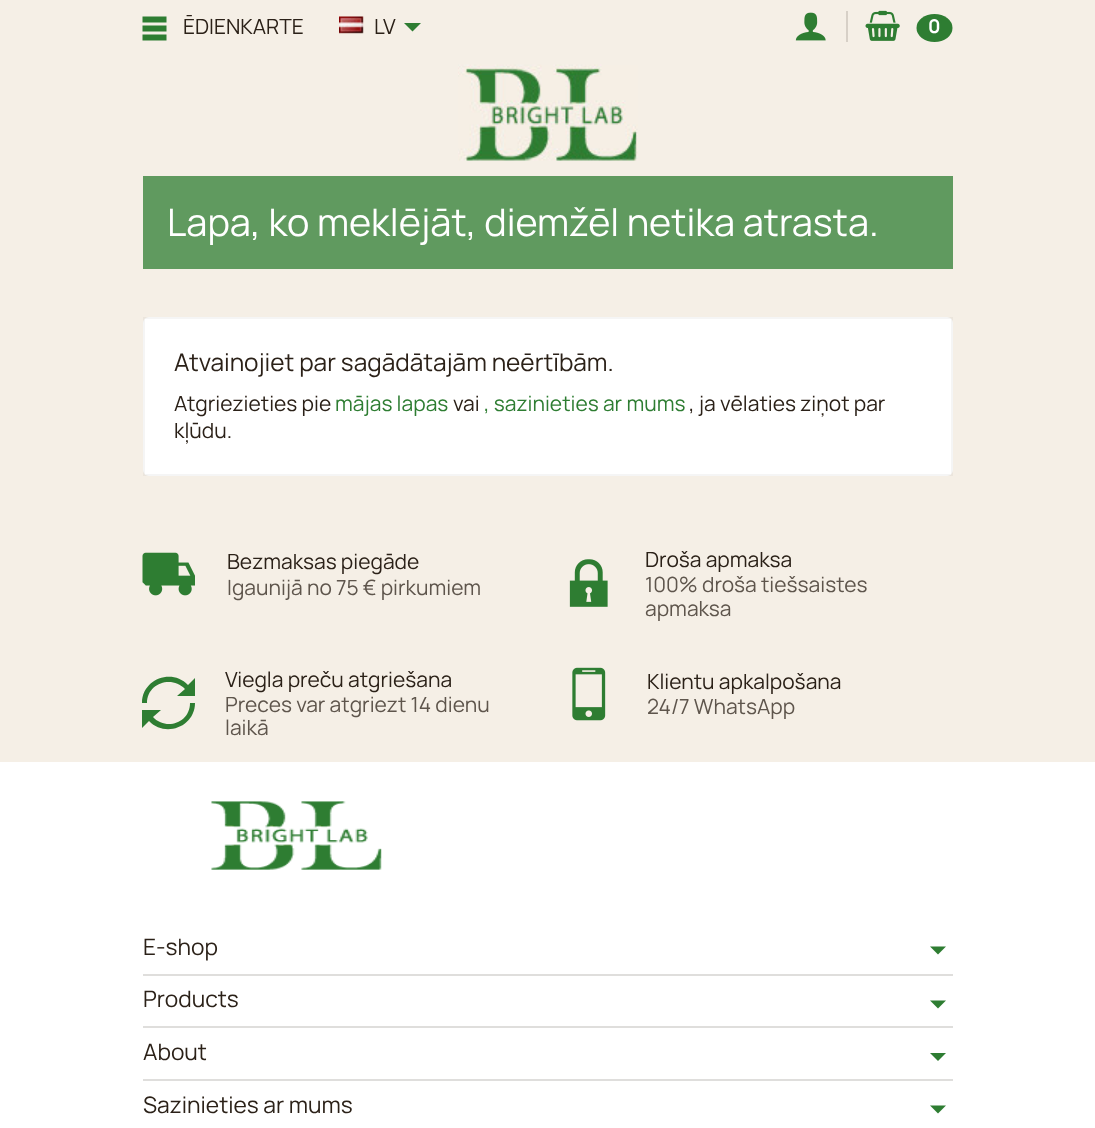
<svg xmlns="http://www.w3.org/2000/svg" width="1095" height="1128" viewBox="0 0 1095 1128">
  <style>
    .t1 { font: 200 21px Manrope; fill: #2b2118; }
    .t2 { font: 200 19px 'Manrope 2'; fill: #fff; }
    .t3 { font: 200 37.9px Manrope; fill: #fff; }
    .t4 { font: 200 24.4px Manrope; fill: #2b2118; }
    .t5 { font: 200 21px Manrope; fill: #2e7d32; }
    .t6 { font: 200 21px Manrope; fill: #5e554c; }
    .t7 { font: 200 22.75px Manrope; fill: #2b2118; }
  </style>
  <rect width="100%" height="100%" fill="#f5efe6"/>
  <image x="142" y="16" width="25" height="25" href="images/1.png"/>
  <text x="183" y="34" class="t1">ĒDIENKARTE</text>
  <image x="339" y="16" width="25" height="18" href="images/2.png"/>
  <text x="374" y="34" class="t1">LV</text>
  <path d="M404 23H421L412.5 31.5Z" fill="#2e7d32"/>
  <image x="795" y="12" width="31" height="29" href="images/3.png"/>
  <rect x="846" y="11" width="2" height="31" fill="#d7d0c7"/>
  <image x="865" y="10" width="35" height="31" href="images/4.png"/>
  <ellipse cx="934.5" cy="28" rx="18" ry="14" fill="#2e7d32"/>
  <text x="928" y="33" class="t2">0</text>
  <image x="458" y="64" width="180" height="97" href="images/5.png"/>
  <rect x="143" y="176" width="810" height="93" fill="#609a5f"/>
  <text x="167" y="236" class="t3">Lapa, ko meklējāt, diemžēl netika atrasta.</text>
  <rect x="143" y="317" width="810" height="159" rx="6" fill="#fff"/>
  <rect x="144" y="318" width="808" height="157" fill="none" stroke="#0000000a" stroke-width="2"/>
  <text x="174" y="371" class="t4">Atvainojiet par sagādātajām neērtībām.</text>
  <text x="174" y="411" class="t1">Atgriezieties pie</text>
  <text x="335" y="411" class="t5">mājas lapas</text>
  <text x="453" y="411" class="t1">vai</text>
  <text x="484" y="411" class="t5">, sazinieties ar mums</text>
  <text x="689" y="411" class="t1">, ja vēlaties ziņot par</text>
  <text x="174" y="438" class="t1">kļūdu.</text>
  <image x="142" y="552" width="53" height="44" href="images/6.png"/>
  <text x="227" y="569" class="t1">Bezmaksas piegāde</text>
  <text x="227" y="595" class="t6">Igaunijā no 75 € pirkumiem</text>
  <image x="569" y="559" width="39" height="48" href="images/7.png"/>
  <text x="645" y="567" class="t1">Droša apmaksa</text>
  <text x="645" y="592" class="t6">100% droša tiešsaistes</text>
  <text x="645" y="616" class="t6">apmaksa</text>
  <path d="M188 685C172 668 142 679 142 703H147C147 683 172 675 185 689L177 696H195V678ZM190 703C190 723 166 731 153 717L161 710H142V728L149 721C165 738 195 727 195 703Z" fill="#2e7d32"/>
  <text x="225" y="687" class="t1">Viegla preču atgriešana</text>
  <text x="225" y="712" class="t6">Preces var atgriezt 14 dienu</text>
  <text x="225" y="735" class="t6">laikā</text>
  <image x="572" y="667" width="34" height="54" href="images/8.png"/>
  <text x="647" y="689" class="t1">Klientu apkalpošana</text>
  <text x="647" y="714" class="t6">24/7 WhatsApp</text>
  <rect x="0" y="762" width="1095" height="366" fill="#fff"/>
  <image x="211" y="801" width="171" height="69" href="images/9.png"/>
  <rect x="143" y="974" width="810" height="2" fill="#dfdedc"/>
  <text x="143" y="955" class="t7">E-shop</text>
  <path d="M930 946.5H946L938 954.5Z" fill="#2e7d32"/>
  <rect x="143" y="1026" width="810" height="2" fill="#dfdedc"/>
  <text x="143" y="1007" class="t7">Products</text>
  <path d="M930 1000.5H946L938 1008.5Z" fill="#2e7d32"/>
  <rect x="143" y="1079" width="810" height="2" fill="#dfdedc"/>
  <text x="143" y="1060" class="t7">About</text>
  <path d="M930 1053H946L938 1061Z" fill="#2e7d32"/>
  <text x="143" y="1113" class="t7">Sazinieties ar mums</text>
  <path d="M930 1105.5H946L938 1113.5Z" fill="#2e7d32"/>
</svg>
